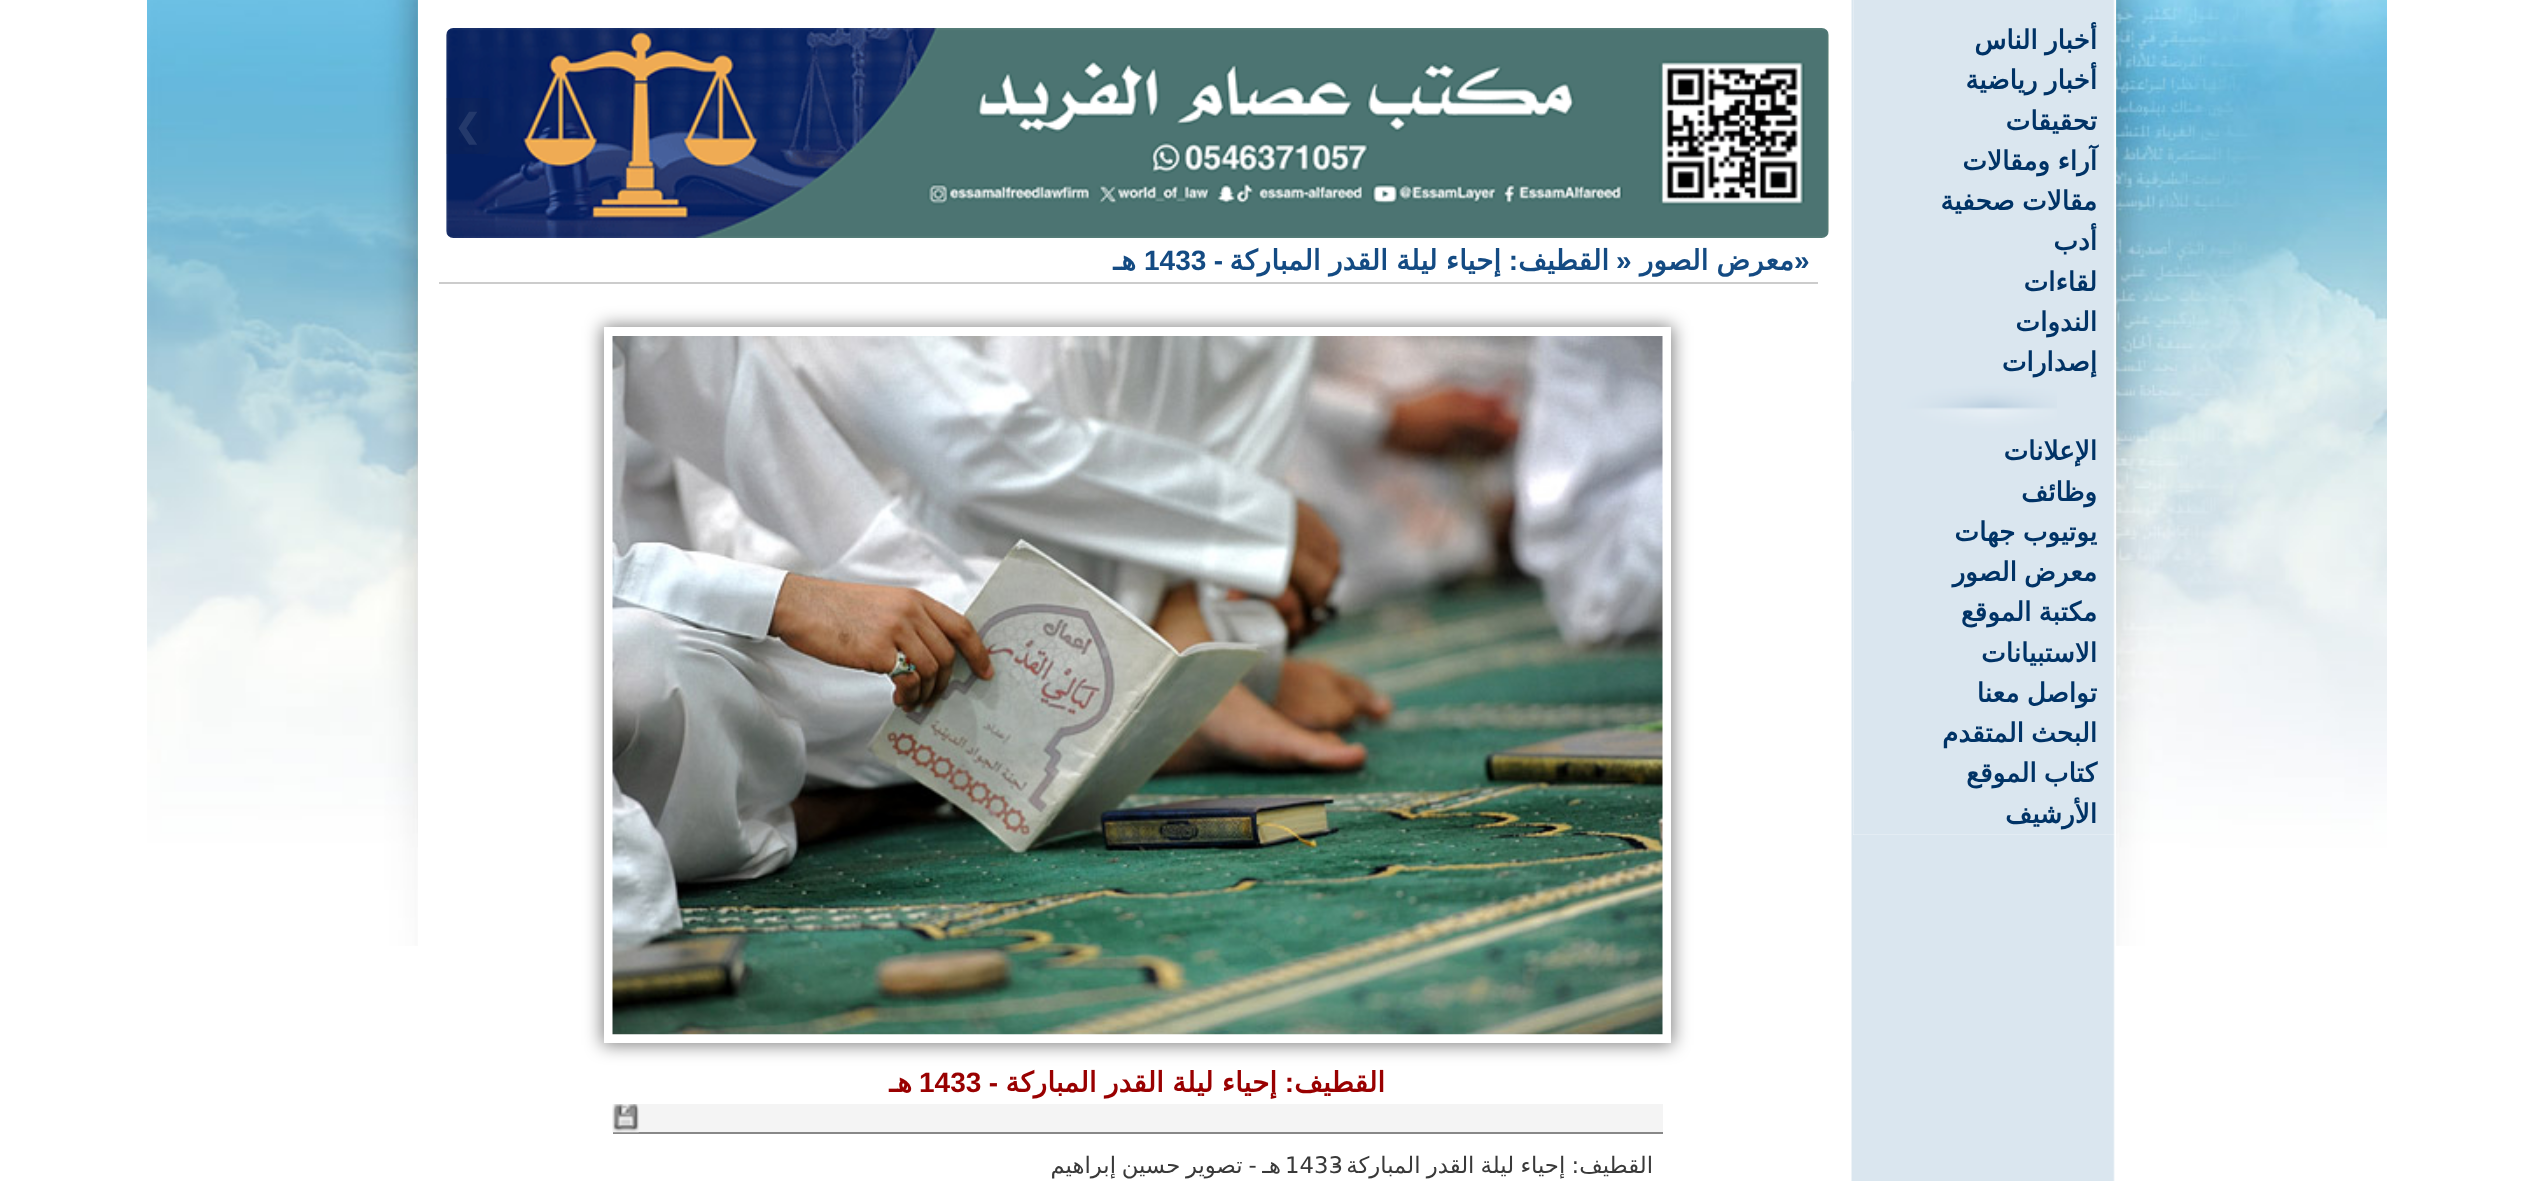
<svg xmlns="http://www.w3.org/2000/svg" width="2531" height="1181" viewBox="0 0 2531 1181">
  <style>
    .t1 { font: bold 26.25px DejaVu Sans; direction: rtl; fill: #036; }
    .t2 { font: bold 32px DejaVu Sans; fill: #24396b; }
    .t3 { font: bold 28px Liberation Sans; fill: #144b83; }
    .t4 { font: bold 28px DejaVu Sans; direction: rtl; fill: #144b83; }
    .t5 { font: bold 28px Liberation Sans; direction: rtl; fill: #144b83; }
    .t6 { font: bold 28px DejaVu Sans; direction: rtl; fill: #900; }
    .t7 { font: bold 28px Liberation Sans; direction: rtl; fill: #900; }
    .t8 { font: bold 28px Liberation Sans; fill: #900; }
    .t9 { font: 22.75px DejaVu Sans; fill: #393939; }
    .t10 { font: 22.75px DejaVu Sans; direction: rtl; fill: #393939; }
  </style>
  <rect width="100%" height="100%" fill="#fff"/>
  <image x="147" y="0" width="2240" height="946" href="images/1.png"/>
  <rect x="418" y="0" width="1698" height="946" fill="#fff"/>
  <image x="1851" y="0" width="264" height="1181" href="images/2.png"/>
  <rect x="1853" y="0" width="262" height="383" fill="#fff"/>
  <image x="1853" y="0" width="262" height="383" href="images/3.png"/>
  <text x="2097" y="49" word-spacing="-1" class="t1">أخبار الناس</text>
  <text x="2097" y="89" word-spacing="-1" class="t1">أخبار رياضية</text>
  <text x="2097" y="130" class="t1">تحقيقات</text>
  <text x="2097" y="170" word-spacing="-1" class="t1">آراء ومقالات</text>
  <text x="2097" y="210" word-spacing="-1" class="t1">مقالات صحفية</text>
  <text x="2097" y="250" class="t1">أدب</text>
  <text x="2097" y="291" class="t1">لقاءات</text>
  <text x="2097" y="331" class="t1">الندوات</text>
  <text x="2097" y="371" class="t1">إصدارات</text>
  <image x="1851" y="381" width="206" height="50" href="images/4.png"/>
  <rect x="1853" y="431" width="262" height="404" fill="#fff"/>
  <image x="1853" y="431" width="262" height="404" href="images/5.png"/>
  <text x="2097" y="460" class="t1">الإعلانات</text>
  <text x="2097" y="501" class="t1">وظائف</text>
  <text x="2097" y="541" word-spacing="-1" class="t1">يوتيوب جهات</text>
  <text x="2097" y="581" word-spacing="-1" class="t1">معرض الصور</text>
  <text x="2097" y="621" word-spacing="-1" class="t1">مكتبة الموقع</text>
  <text x="2097" y="662" class="t1">الاستبيانات</text>
  <text x="2097" y="702" word-spacing="-1" class="t1">تواصل معنا</text>
  <text x="2097" y="742" word-spacing="-1" class="t1">البحث المتقدم</text>
  <text x="2097" y="782" word-spacing="-1" class="t1">كتاب الموقع</text>
  <text x="2097" y="823" class="t1">الأرشيف</text>
  <image x="446" y="32" width="1" height="202" href="images/8.png"/>
  <image x="446" y="28" width="1383" height="210" href="images/6.png"/>
  <image x="1828" y="34" width="1" height="198" href="images/7.png"/>
  <path d="M446 98H486C488 98 490 100 490 102V150C490 152 488 154 486 154H446Z" fill="#2a2a2a1a"/>
  <text x="454" y="137" class="t2">❮</text>
  <rect x="439" y="282" width="1379" height="2" fill="#ccc"/>
  <text x="1794" y="270" class="t3">»</text>
  <text x="1794" y="270" word-spacing="-1" class="t4">معرض الصور</text>
  <text x="1616" y="270" class="t3">»</text>
  <text x="1609" y="270" class="t4">القطيف</text>
  <text x="1518" y="270" class="t5">:</text>
  <text x="1501" y="270" word-spacing="-0.5" class="t4">إحياء ليلة القدر المباركة</text>
  <text x="1223" y="270" class="t5">-</text>
  <text x="1144" y="270" class="t3">1433</text>
  <text x="1136" y="270" class="t4">هـ</text>
  <rect x="602" y="326" width="1071" height="719" fill="#00000080" filter="blur(9px)"/>
  <rect x="608.5" y="331.5" width="1058" height="707" fill="none" stroke="#fff" stroke-width="9"/>
  <image x="612" y="336" width="1051" height="699" href="images/9.png"/>
  <text x="1385" y="1092" class="t6">القطيف</text>
  <text x="1294" y="1092" class="t7">:</text>
  <text x="1277" y="1092" word-spacing="-0.5" class="t6">إحياء ليلة القدر المباركة</text>
  <text x="998" y="1092" class="t7">-</text>
  <text x="919" y="1092" class="t8">1433</text>
  <text x="912" y="1092" class="t6">هـ</text>
  <rect x="613" y="1104" width="1050" height="28" fill="#f4f4f4"/>
  <rect x="613" y="1132" width="1050" height="2" fill="#888"/>
  <image x="612" y="1104" width="27" height="29" href="images/10.png"/>
  <text x="1285" y="1173" class="t9">1433</text>
  <text x="1653" y="1173" word-spacing="-1" class="t10">القطيف: إحياء ليلة القدر المباركة -</text>
  <text x="1281" y="1173" word-spacing="-1.5" class="t10">هـ - تصوير حسين إبراهيم</text>
</svg>
